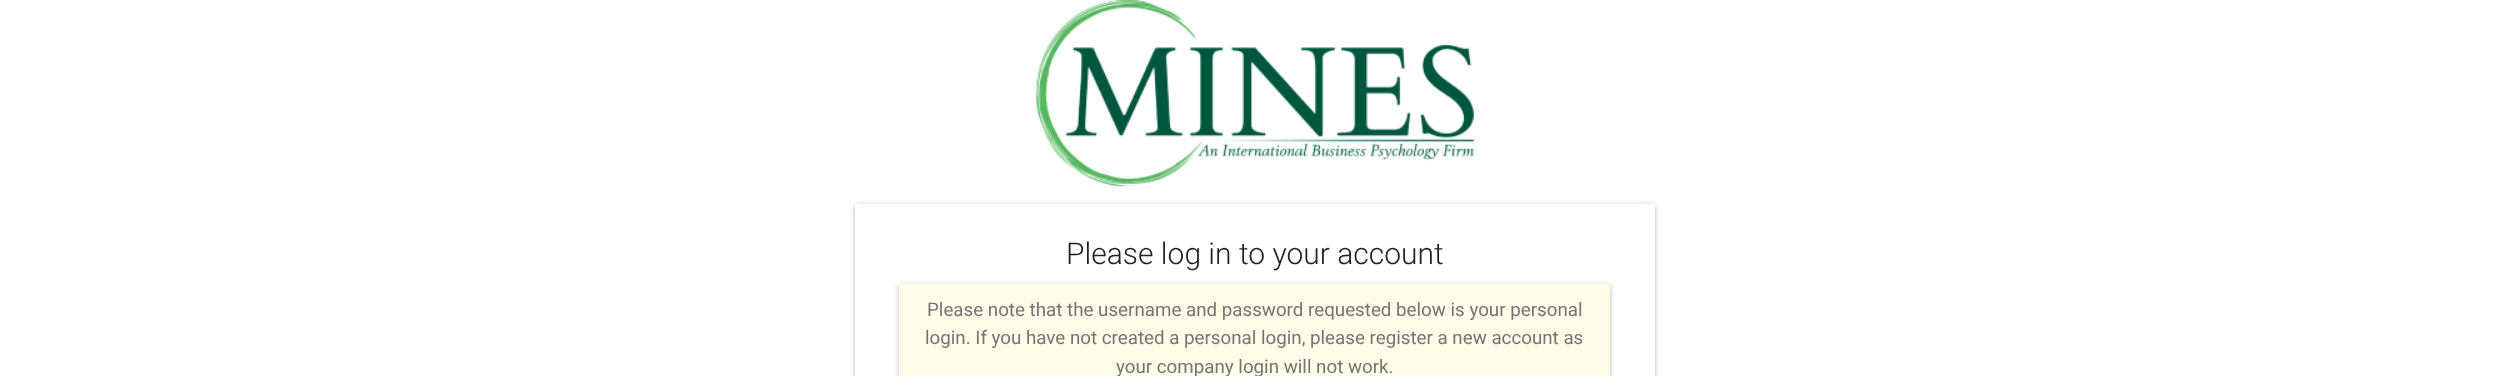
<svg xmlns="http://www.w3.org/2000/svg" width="2508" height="376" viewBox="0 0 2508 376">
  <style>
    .t1 { font: 300 30px Roboto; fill: #212121; }
    .t2 { font: 18.75px Roboto; fill: #757575; }
  </style>
  <rect width="100%" height="100%" fill="#fff"/>
  <image x="1036" y="0" width="438" height="187" href="images/1.png"/>
  <rect x="855" y="205" width="800" height="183" rx="2.5" fill="#00000033" filter="blur(3px)"/>
  <rect x="855" y="206" width="800" height="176" rx="2.5" fill="#00000024" filter="blur(1px)"/>
  <rect x="855" y="204" width="800" height="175" rx="2.5" fill="#fff"/>
  <text x="1066" y="264" class="t1">Please log in to your account</text>
  <rect x="899" y="285" width="711" height="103" rx="2.5" fill="#00000033" filter="blur(3px)"/>
  <rect x="899" y="286" width="711" height="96" rx="2.5" fill="#00000024" filter="blur(1px)"/>
  <rect x="899" y="284" width="711" height="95" rx="2.5" fill="#fffde7"/>
  <text x="927" y="316" class="t2">Please note that the username and password requested below is your personal</text>
  <text x="925" y="344" class="t2">login. If you have not created a personal login, please register a new account as</text>
  <text x="1116" y="373" class="t2">your company login will not work.</text>
</svg>
